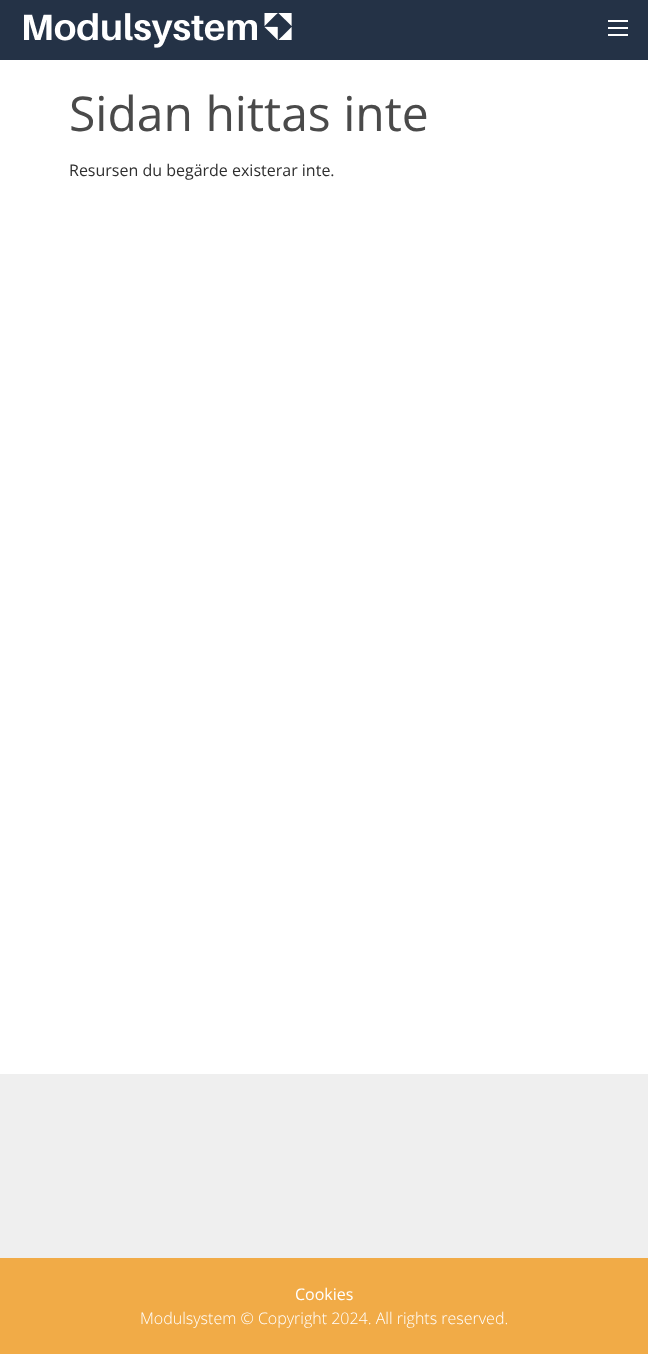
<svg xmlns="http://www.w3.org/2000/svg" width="648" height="1354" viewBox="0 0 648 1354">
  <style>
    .t1 { font: 48px Open Sans; fill: #4a4a4a; }
    .t2 { font: 16px Open Sans; fill: #2f2f2f; }
    .t3 { font: 16px Open Sans; fill: #fff; }
    .t4 { font: 300 16px Open Sans; fill: #fff; }
  </style>
  <rect width="100%" height="100%" fill="#fff"/>
  <rect x="0" y="0" width="648" height="60" fill="#243246"/>
  <image x="24" y="13" width="268" height="35" href="images/1.png"/>
  <rect x="608" y="34" width="20" height="2" fill="#fff"/>
  <rect x="608" y="20" width="20" height="2" fill="#fff"/>
  <rect x="608" y="27" width="20" height="2" fill="#fff"/>
  <text x="69" y="131" class="t1">Sidan hittas inte</text>
  <text x="69" y="176" class="t2">Resursen du begärde existerar inte.</text>
  <rect x="0" y="1074" width="648" height="184" fill="#efefef"/>
  <rect x="0" y="1258" width="648" height="96" fill="#f1ab47"/>
  <text x="295" y="1300" class="t3">Cookies</text>
  <text x="140" y="1324" class="t4">Modulsystem © Copyright 2024. All rights reserved.</text>
</svg>
